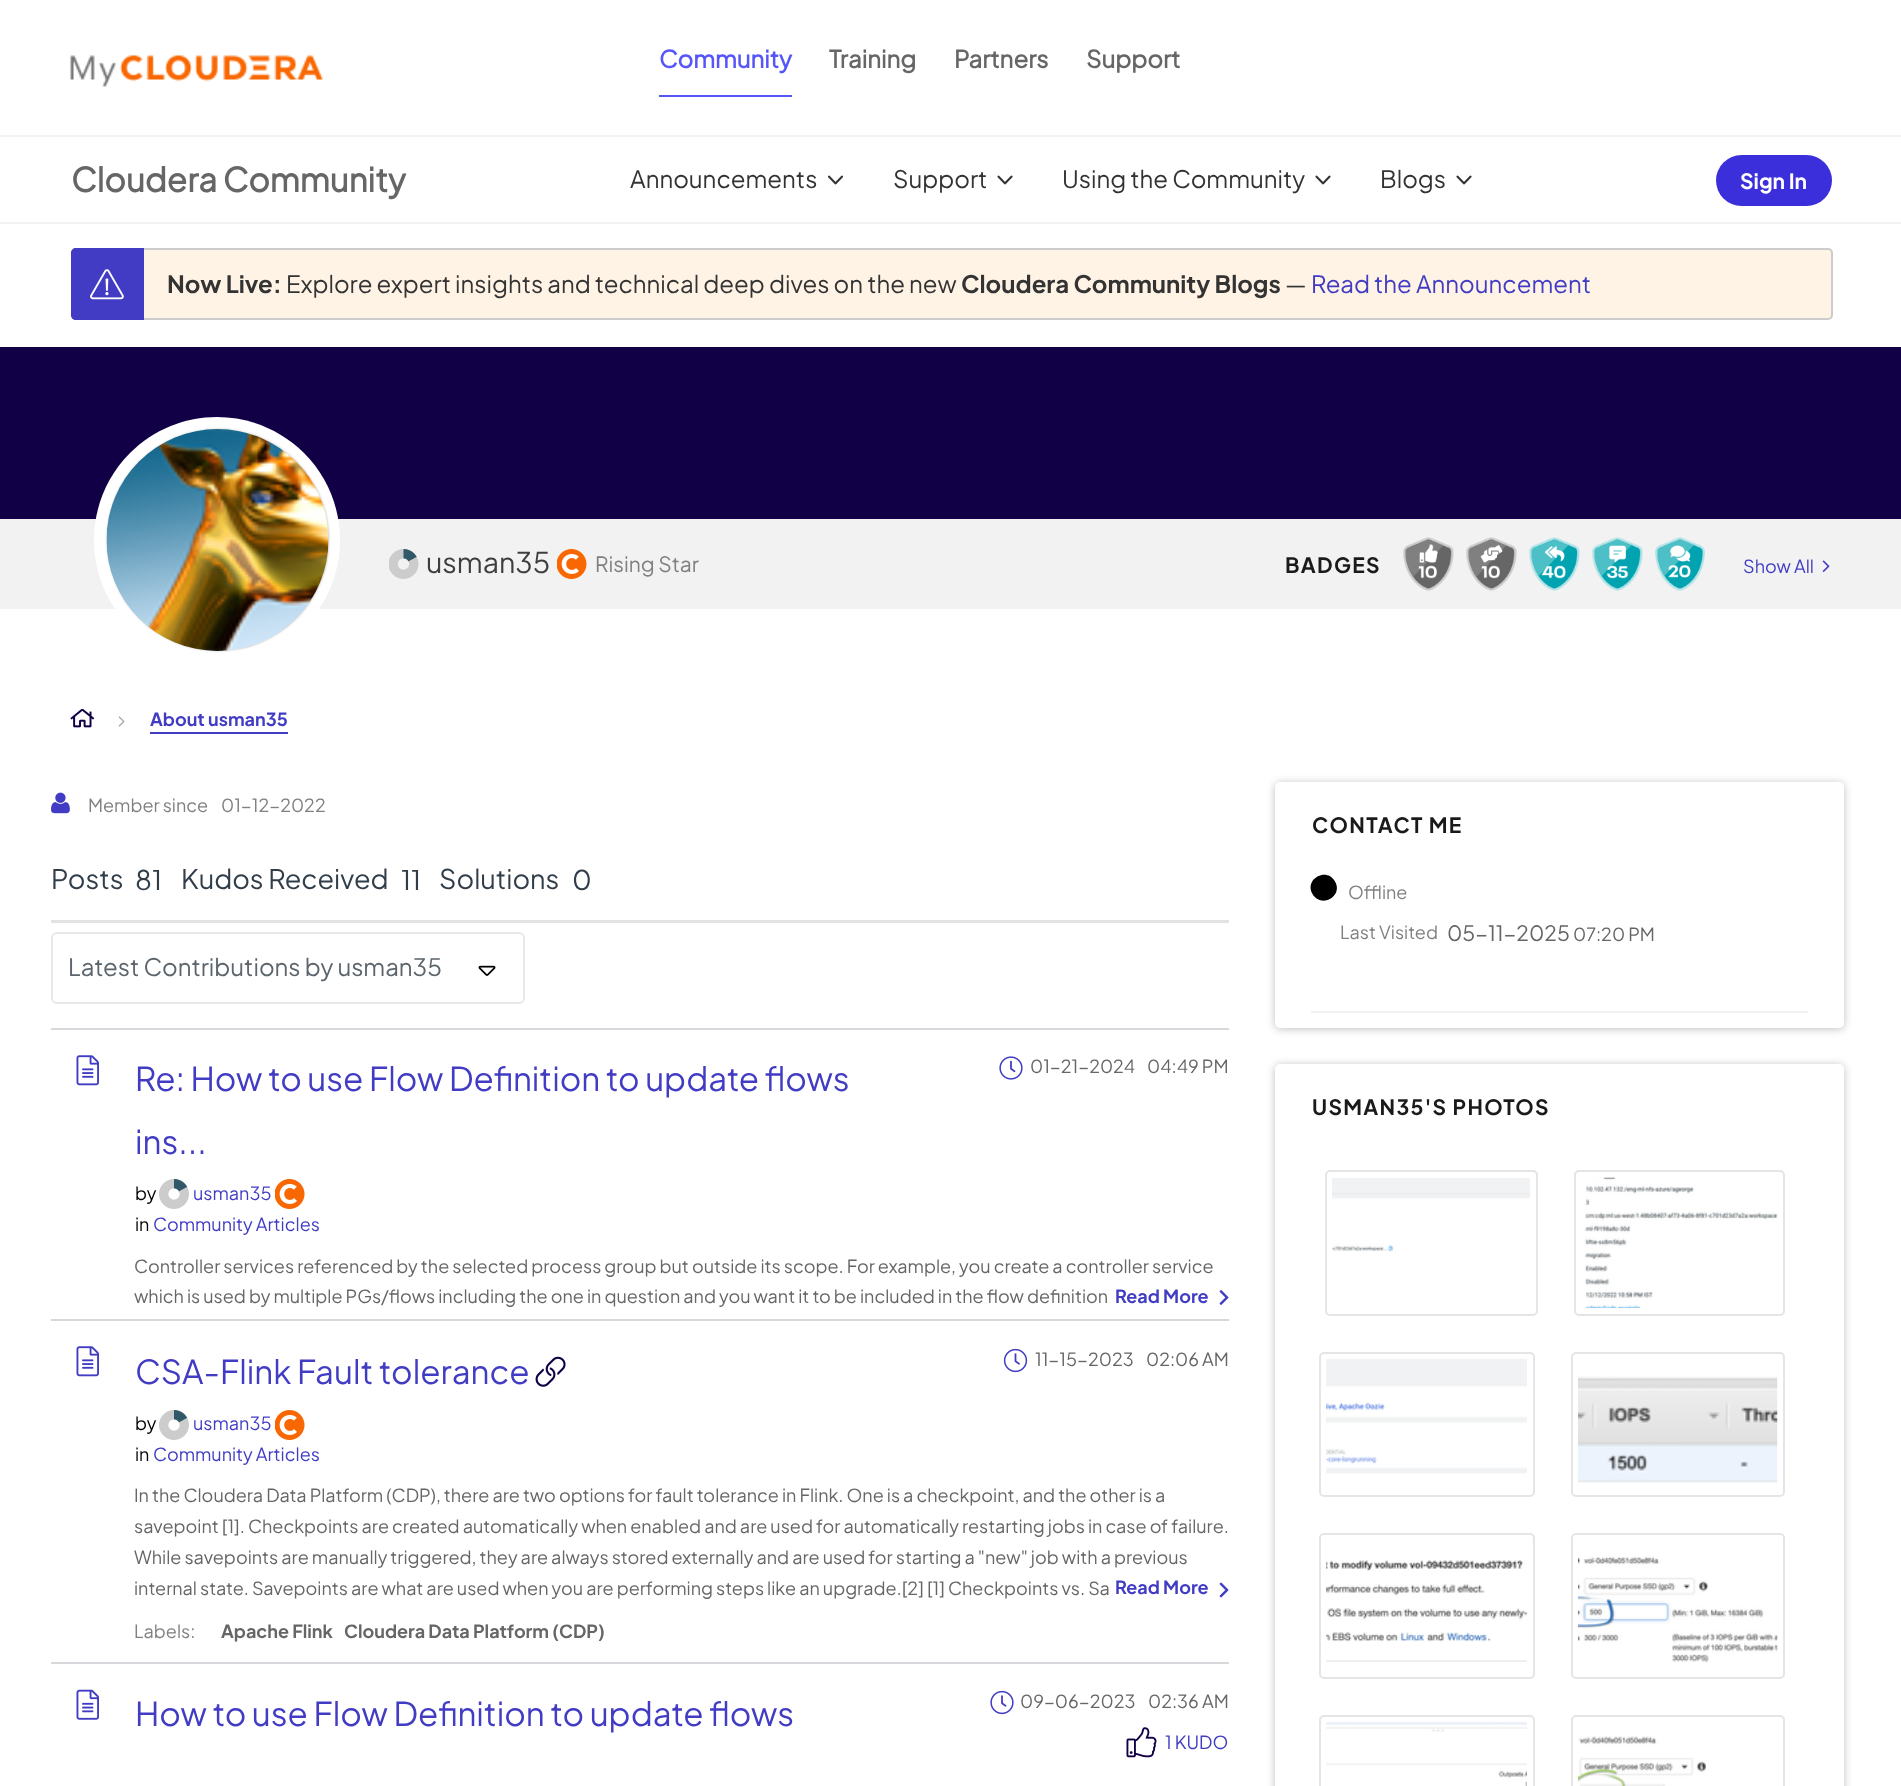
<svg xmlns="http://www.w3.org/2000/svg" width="1901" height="1786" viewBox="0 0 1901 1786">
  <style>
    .t1 { font: bold 24px 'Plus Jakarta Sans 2'; fill: #5555f9; }
    .t2 { font: bold 24px 'Plus Jakarta Sans 2'; fill: #666; }
    .t3 { font: bold 33px 'Plus Jakarta Sans 2'; fill: #666; }
    .t4 { font: 24px Plus Jakarta Sans; fill: #333; }
    .t5 { font: bold 21px Plus Jakarta Sans; fill: #fff; }
    .t6 { font: bold 24px Plus Jakarta Sans; fill: #333; }
    .t7 { font: 24px Plus Jakarta Sans; fill: #413cc3; }
    .t8 { font: 28.5px Plus Jakarta Sans; fill: #3e3e3e; }
    .t9 { font: 21px Plus Jakarta Sans; fill: #808080; }
    .t10 { font: bold 21px Plus Jakarta Sans; letter-spacing: 1.3px; fill: #1a1a1a; }
    .t11 { font: 18px Plus Jakarta Sans; fill: #413cc3; }
    .t12 { font: bold 18px Plus Jakarta Sans; fill: #413cc3; }
    .t13 { font: 18px Plus Jakarta Sans; fill: #808080; }
    .t14 { font: 27px Plus Jakarta Sans; fill: #313e49; }
    .t15 { font: 24px Plus Jakarta Sans; fill: #5c656c; }
    .t16 { font: 33px Plus Jakarta Sans; fill: #413cc3; }
    .t17 { font: 18px Plus Jakarta Sans; fill: #000; }
    .t18 { font: 18px Plus Jakarta Sans; fill: #666; }
    .t19 { font: bold 18px Plus Jakarta Sans; fill: #666; }
    .t20 { font: 21px Plus Jakarta Sans; fill: #666; }
  </style>
  <rect width="100%" height="100%" fill="#fff"/>
  <rect x="0" y="135" width="1901" height="2" fill="#f2f2f2"/>
  <image x="70" y="55" width="253" height="32" href="images/1.png"/>
  <rect x="659" y="95" width="133" height="2" fill="#5555f9"/>
  <text x="659" y="68" class="t1">Community</text>
  <text x="829" y="68" class="t2">Training</text>
  <text x="954" y="68" class="t2">Partners</text>
  <text x="1086" y="68" class="t2">Support</text>
  <rect x="0" y="222" width="1901" height="2" fill="#f2f2f2"/>
  <text x="71" y="192" class="t3">Cloudera Community</text>
  <text x="630" y="188" class="t4">Announcements</text>
  <image x="827" y="175" width="17" height="10" href="images/2.png"/>
  <text x="893" y="188" class="t4">Support</text>
  <image x="997" y="175" width="16" height="10" href="images/3.png"/>
  <text x="1062" y="188" class="t4">Using the Community</text>
  <image x="1315" y="175" width="16" height="10" href="images/3.png"/>
  <text x="1380" y="188" class="t4">Blogs</text>
  <image x="1456" y="175" width="16" height="10" href="images/3.png"/>
  <rect x="1716" y="155" width="116" height="51" rx="25.5" fill="#3b2edb"/>
  <text x="1740" y="189" class="t5">Sign In</text>
  <rect x="72" y="249" width="1760" height="70" rx="4" fill="#fff3e6" stroke="#ccc" stroke-width="2"/>
  <path d="M76 248H144V320H76C73 320 71 318 71 315V253C71 250 73 248 76 248Z" fill="#413cc3"/>
  <image x="90" y="269" width="34" height="31" href="images/4.png"/>
  <text x="167" y="293" class="t6">Now Live:</text>
  <text x="286" y="293" class="t4">Explore expert insights and technical deep dives on the new</text>
  <text x="961" y="293" class="t6">Cloudera Community Blogs</text>
  <text x="1285" y="293" class="t4">—</text>
  <text x="1311" y="293" class="t7">Read the Announcement</text>
  <rect x="0" y="347" width="1901" height="172" fill="#120046"/>
  <rect x="0" y="519" width="1901" height="90" fill="#f2f2f2"/>
  <path d="M304 453C352 501 352 579 304 627C256 675 178 675 130 627C82 579 82 501 130 453C178 405 256 405 304 453Z" fill="#fff"/>
  <rect x="107" y="429" width="222" height="222" rx="111" fill="#c4c4c4" filter="blur(1px)"/>
  <image x="106" y="429" width="223" height="222" href="images/5.png"/>
  <image x="389" y="549" width="30" height="30" href="images/6.png"/>
  <text x="426" y="573" class="t8">usman35</text>
  <image x="557" y="549" width="30" height="30" href="images/7.png"/>
  <text x="595" y="572" class="t9">Rising Star</text>
  <text x="1285" y="573" class="t10">BADGES</text>
  <image x="1403" y="537" width="51" height="54" href="images/8.png"/>
  <image x="1466" y="537" width="51" height="54" href="images/9.png"/>
  <image x="1529" y="537" width="51" height="54" href="images/10.png"/>
  <image x="1592" y="537" width="51" height="54" href="images/11.png"/>
  <image x="1655" y="537" width="50" height="54" href="images/12.png"/>
  <text x="1743" y="573" class="t11">Show All</text>
  <image x="1822" y="560" width="8" height="12" href="images/13.png"/>
  <image x="70" y="708" width="25" height="20" href="images/14.png"/>
  <image x="118" y="716" width="7" height="11" href="images/15.png"/>
  <text x="150" y="726" class="t12">About usman35</text>
  <rect x="150" y="732" width="138" height="2" fill="#413cc3"/>
  <rect x="51" y="920" width="1178" height="3" fill="#e3e3e3"/>
  <image x="51" y="792" width="19" height="22" href="images/16.png"/>
  <text x="88" y="812" class="t13">Member since</text>
  <text x="221" y="812" class="t13">01-12-2022</text>
  <text x="51" y="889" class="t14">Posts</text>
  <text x="135" y="890" class="t14">81</text>
  <text x="181" y="889" class="t14">Kudos Received</text>
  <text x="401" y="890" class="t14">11</text>
  <text x="439" y="889" class="t14">Solutions</text>
  <text x="572" y="890" class="t14">0</text>
  <rect x="52" y="933" width="472" height="70" rx="5" fill="none" stroke="#e8e8e8" stroke-width="2"/>
  <text x="68" y="976" class="t15">Latest Contributions by usman35</text>
  <image x="478" y="965" width="18" height="11" href="images/17.png"/>
  <rect x="51" y="1028" width="1178" height="2" fill="#d6d8db"/>
  <rect x="51" y="1319" width="1178" height="2" fill="#d6d8db"/>
  <image x="76" y="1055" width="23" height="31" href="images/18.png"/>
  <text x="135" y="1091" class="t16">Re: How to use Flow Definition to update flows</text>
  <text x="135" y="1154" class="t16">ins...</text>
  <text x="135" y="1200" class="t17">by</text>
  <image x="159" y="1179" width="30" height="30" href="images/19.png"/>
  <text x="193" y="1200" class="t11">usman35</text>
  <image x="275" y="1179" width="30" height="30" href="images/20.png"/>
  <text x="135" y="1231" class="t17">in</text>
  <text x="153" y="1231" class="t11">Community Articles</text>
  <image x="999" y="1056" width="24" height="24" href="images/21.png"/>
  <text x="1030" y="1073" class="t18">01-21-2024</text>
  <text x="1147" y="1073" class="t18">04:49 PM</text>
  <text x="134" y="1273" class="t18">Controller services referenced by the selected process group but outside its scope. For example, you create a controller service</text>
  <text x="134" y="1303" class="t18">which is used by multiple PGs/flows including the one in question and you want it to be included in the flow definition</text>
  <text x="1115" y="1303" class="t12">Read More</text>
  <image x="1219" y="1290" width="10" height="15" href="images/22.png"/>
  <rect x="51" y="1662" width="1178" height="2" fill="#d6d8db"/>
  <image x="76" y="1346" width="23" height="31" href="images/18.png"/>
  <text x="135" y="1384" class="t16">CSA-Flink Fault tolerance</text>
  <image x="535" y="1356" width="31" height="31" href="images/23.png"/>
  <text x="135" y="1430" class="t17">by</text>
  <image x="159" y="1410" width="30" height="30" href="images/19.png"/>
  <text x="193" y="1430" class="t11">usman35</text>
  <image x="275" y="1410" width="30" height="30" href="images/20.png"/>
  <text x="135" y="1461" class="t17">in</text>
  <text x="153" y="1461" class="t11">Community Articles</text>
  <image x="1003" y="1348" width="25" height="25" href="images/24.png"/>
  <text x="1035" y="1366" class="t18">11-15-2023</text>
  <text x="1146" y="1366" class="t18">02:06 AM</text>
  <text x="134" y="1502" class="t18">In the Cloudera Data Platform (CDP), there are two options for fault tolerance in Flink. One is a checkpoint, and the other is a</text>
  <text x="134" y="1533" class="t18">savepoint [1]. Checkpoints are created automatically when enabled and are used for automatically restarting jobs in case of failure.</text>
  <text x="134" y="1564" class="t18">While savepoints are manually triggered, they are always stored externally and are used for starting a "new" job with a previous</text>
  <text x="134" y="1595" class="t18">internal state. Savepoints are what are used when you are performing steps like an upgrade.[2] [1] Checkpoints vs. Sa</text>
  <text x="1115" y="1594" class="t12">Read More</text>
  <image x="1219" y="1582" width="10" height="16" href="images/25.png"/>
  <text x="134" y="1638" class="t13">Labels:</text>
  <text x="221" y="1638" class="t19">Apache Flink</text>
  <text x="344" y="1638" class="t19">Cloudera Data Platform (CDP)</text>
  <image x="76" y="1689" width="23" height="31" href="images/26.png"/>
  <text x="135" y="1726" class="t16">How to use Flow Definition to update flows</text>
  <image x="990" y="1690" width="24" height="25" href="images/27.png"/>
  <text x="1020" y="1708" class="t18">09-06-2023</text>
  <text x="1148" y="1708" class="t18">02:36 AM</text>
  <image x="1126" y="1727" width="31" height="31" href="images/28.png"/>
  <text x="1165" y="1749" class="t11">1 KUDO</text>
  <rect x="1275" y="783" width="569" height="246" rx="5" fill="#00000040" filter="blur(4px)"/>
  <rect x="1275" y="782" width="569" height="246" rx="5" fill="#fff"/>
  <text x="1312" y="833" class="t10">CONTACT ME</text>
  <path d="M1335 881.5C1343.5 896 1321.5 909 1312.5 894C1304 879.5 1326.5 866.5 1335 881.5Z" fill="#000"/>
  <text x="1348" y="899" class="t13">Offline</text>
  <text x="1340" y="939" class="t13">Last Visited</text>
  <text x="1447" y="941" class="t20">05-11-2025</text>
  <text x="1573" y="941" class="t18">07:20 PM</text>
  <rect x="1311" y="1011" width="497" height="2" fill="#f1f1f1"/>
  <rect x="1275" y="1065" width="569" height="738" rx="5" fill="#00000040" filter="blur(4px)"/>
  <rect x="1275" y="1064" width="569" height="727" rx="5" fill="#fff"/>
  <text x="1312" y="1115" class="t10">USMAN35'S PHOTOS</text>
  <rect x="1326" y="1171" width="211" height="144" rx="4" fill="none" stroke="#e5e5e5" stroke-width="2"/>
  <image x="1332" y="1178" width="198" height="74" href="images/29.png"/>
  <rect x="1575" y="1171" width="209" height="144" rx="4" fill="none" stroke="#e5e5e5" stroke-width="2"/>
  <image x="1584" y="1177" width="194" height="131" href="images/30.png"/>
  <rect x="1320" y="1353" width="214" height="143" rx="4" fill="none" stroke="#e5e5e5" stroke-width="2"/>
  <image x="1326" y="1359" width="201" height="115" href="images/31.png"/>
  <rect x="1572" y="1353" width="212" height="143" rx="4" fill="none" stroke="#e5e5e5" stroke-width="2"/>
  <image x="1578" y="1376" width="200" height="107" href="images/32.png"/>
  <rect x="1320" y="1534" width="214" height="144" rx="4" fill="none" stroke="#e5e5e5" stroke-width="2"/>
  <image x="1326" y="1560" width="201" height="102" href="images/33.png"/>
  <rect x="1572" y="1534" width="212" height="144" rx="4" fill="none" stroke="#e5e5e5" stroke-width="2"/>
  <image x="1578" y="1556" width="200" height="107" href="images/34.png"/>
  <rect x="1320" y="1716" width="214" height="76" rx="4" fill="none" stroke="#e5e5e5" stroke-width="2"/>
  <image x="1326" y="1722" width="201" height="64" href="images/35.png"/>
  <rect x="1572" y="1716" width="212" height="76" rx="4" fill="none" stroke="#e5e5e5" stroke-width="2"/>
  <image x="1578" y="1736" width="129" height="50" href="images/36.png"/>
</svg>
